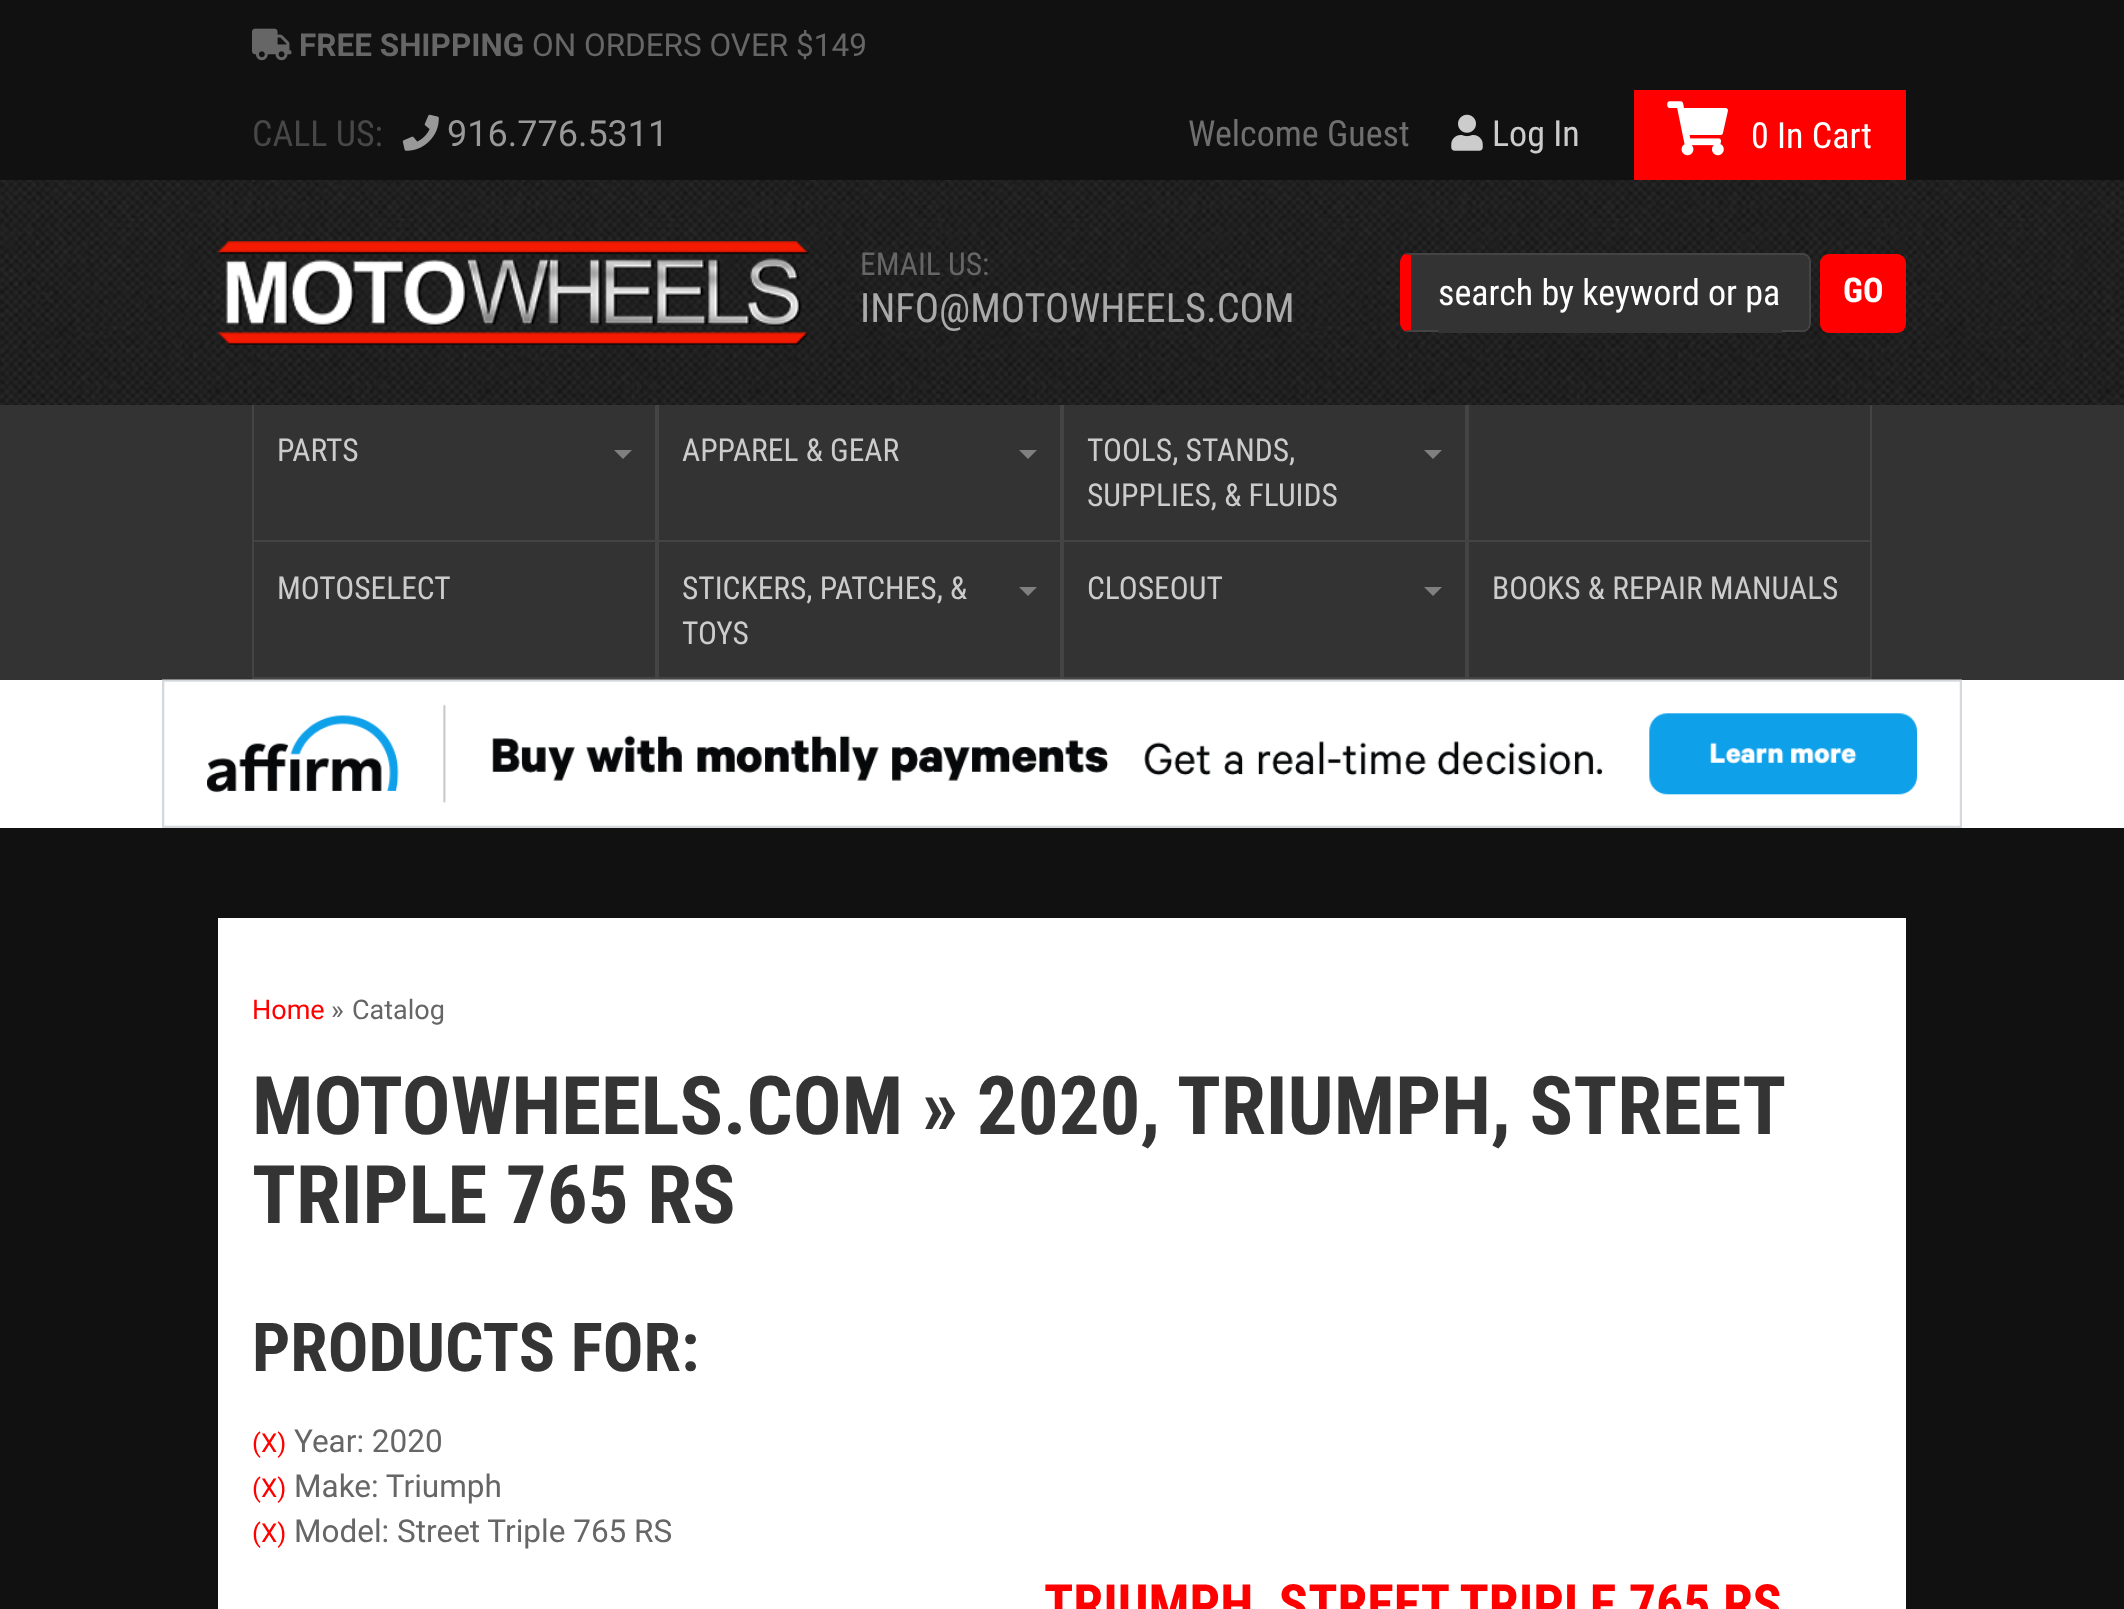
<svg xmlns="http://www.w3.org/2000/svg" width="2124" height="1609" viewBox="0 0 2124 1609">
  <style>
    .t1 { font: bold 31.5px Roboto; fill: #666; }
    .t2 { font: 31.5px Roboto; fill: #666; }
    .t3 { font: 36px Roboto Condensed; fill: #474747; }
    .t4 { font: 36px Roboto; fill: #999; }
    .t5 { font: 36px Roboto Condensed; fill: #6f6f6f; }
    .t6 { font: 36px Roboto Condensed; fill: #ccc; }
    .t7 { font: 36px Roboto Condensed; fill: #fff; }
    .t8 { font: 31.5px Roboto Condensed; fill: #666; }
    .t9 { font: 40.5px Roboto Condensed; fill: #aaa; }
    .t10 { font: bold 34px Roboto Condensed; fill: #fff; }
    .t11 { font: 31.5px Roboto Condensed; fill: #ccc; }
    .t12 { font: 27px Roboto; fill: #f00; }
    .t13 { font: 27px Roboto; fill: #666; }
    .t14 { font: bold 81px Roboto Condensed; fill: #343434; }
    .t15 { font: bold 67.5px Roboto Condensed; fill: #343434; }
    .t16 { font: 26px Roboto; fill: #f00; }
    .t17 { font: bold 54px Roboto Condensed; fill: #f00; }
  </style>
  <rect width="100%" height="100%" fill="#111"/>
  <image x="252" y="28" width="40" height="33" href="images/1.png"/>
  <text x="299" y="56" class="t1">FREE SHIPPING</text>
  <text x="532" y="56" class="t2">ON ORDERS OVER $149</text>
  <text x="252" y="146" class="t3">CALL US:</text>
  <image x="402" y="114" width="37" height="37" href="images/2.png"/>
  <text x="447" y="146" class="t4">916.776.5311</text>
  <text x="1188" y="146" class="t5">Welcome Guest</text>
  <image x="1451" y="114" width="32" height="37" href="images/3.png"/>
  <text x="1492" y="146" class="t6">Log In</text>
  <image x="0" y="180" width="2124" height="225" href="images/4.png"/>
  <rect x="1634" y="90" width="272" height="90" fill="#f00"/>
  <image x="1667" y="101" width="61" height="55" href="images/5.png"/>
  <text x="1751" y="148" class="t7">0 In Cart</text>
  <image x="218" y="241" width="590" height="104" href="images/6.png"/>
  <text x="860" y="275" class="t8">EMAIL US:</text>
  <text x="860" y="322" class="t9">INFO@MOTOWHEELS.COM</text>
  <path d="M1411 255H1802C1806 255 1809 258 1809 262V323C1809 327 1806 330 1802 330H1411Z" fill="#333"/>
  <path d="M1411 255L1404 254L1407 253H1804C1805 253 1807 254 1809 256L1807 257C1806 256 1804 255 1802 255Z" fill="#444"/>
  <path d="M1809 256C1810 257 1811 260 1811 262V323C1811 325 1810 328 1809 329L1807 328C1808 327 1809 325 1809 323V262C1809 260 1808 258 1807 257Z" fill="#444"/>
  <path d="M1407 332L1404 331L1411 330H1802C1804 330 1806 329 1807 328L1809 329C1807 331 1805 332 1804 332Z" fill="#444"/>
  <path d="M1404 331C1402 329 1400 326 1400 323V262C1400 259 1402 256 1404 254L1411 255V330Z" fill="#f00"/>
  <rect x="1438" y="330" width="344" height="3" fill="#333"/>
  <text x="1438" y="305" class="t7">search by keyword or pa</text>
  <rect x="1820" y="254" width="86" height="79" rx="9" fill="#f00"/>
  <text x="1843" y="302" class="t10">GO</text>
  <rect x="0" y="405" width="2124" height="275" fill="#333"/>
  <rect x="655" y="405" width="2" height="275" fill="#444"/>
  <rect x="252" y="540" width="405" height="2" fill="#444"/>
  <rect x="252" y="405" width="2" height="137" fill="#444"/>
  <text x="277" y="461" class="t11">PARTS</text>
  <path d="M614 450H632L623 459Z" fill="#808080"/>
  <rect x="1060" y="405" width="2" height="275" fill="#444"/>
  <rect x="657" y="540" width="405" height="2" fill="#444"/>
  <rect x="657" y="405" width="2" height="137" fill="#444"/>
  <text x="682" y="461" class="t11">APPAREL &amp; GEAR</text>
  <path d="M1019 450H1037L1028 459Z" fill="#808080"/>
  <rect x="1465" y="405" width="2" height="275" fill="#444"/>
  <rect x="1062" y="540" width="405" height="2" fill="#444"/>
  <rect x="1062" y="405" width="2" height="137" fill="#444"/>
  <text x="1087" y="461" class="t11">TOOLS, STANDS,</text>
  <path d="M1424 450H1442L1433 459Z" fill="#808080"/>
  <text x="1087" y="506" class="t11">SUPPLIES, &amp; FLUIDS</text>
  <rect x="1870" y="405" width="2" height="275" fill="#444"/>
  <rect x="1467" y="540" width="405" height="2" fill="#444"/>
  <rect x="1467" y="405" width="2" height="137" fill="#444"/>
  <rect x="252" y="677" width="1620" height="2" fill="#444"/>
  <rect x="252" y="542" width="2" height="138" fill="#444"/>
  <text x="277" y="599" class="t11">MOTOSELECT</text>
  <rect x="657" y="542" width="2" height="138" fill="#444"/>
  <text x="682" y="599" class="t11">STICKERS, PATCHES, &amp;</text>
  <path d="M1019 587H1037L1028 596Z" fill="#808080"/>
  <text x="682" y="644" class="t11">TOYS</text>
  <rect x="1062" y="542" width="2" height="138" fill="#444"/>
  <text x="1087" y="599" class="t11">CLOSEOUT</text>
  <path d="M1424 587H1442L1433 596Z" fill="#808080"/>
  <rect x="1467" y="542" width="2" height="138" fill="#444"/>
  <text x="1492" y="599" class="t11">BOOKS &amp; REPAIR MANUALS</text>
  <rect x="0" y="680" width="2124" height="148" fill="#fff"/>
  <image x="162" y="679" width="1800" height="149" href="images/7.png"/>
  <rect x="218" y="918" width="1688" height="691" fill="#fff"/>
  <text x="252" y="1019" class="t12">Home</text>
  <text x="331" y="1019" class="t13">»</text>
  <text x="352" y="1019" class="t13">Catalog</text>
  <text x="252" y="1134" class="t14">MOTOWHEELS.COM » 2020,</text>
  <text x="1177" y="1134" class="t14">TRIUMPH, STREET</text>
  <text x="252" y="1223" class="t14">TRIPLE 765 RS</text>
  <text x="252" y="1371" class="t15">PRODUCTS FOR:</text>
  <text x="252" y="1452" class="t16">(X)</text>
  <text x="294" y="1452" class="t2">Year: 2020</text>
  <text x="252" y="1497" class="t16">(X)</text>
  <text x="294" y="1497" class="t2">Make: Triumph</text>
  <text x="252" y="1542" class="t16">(X)</text>
  <text x="294" y="1542" class="t2">Model: Street Triple 765 RS</text>
  <text x="1044" y="1623" class="t17">TRIUMPH</text>
  <text x="1279" y="1623" class="t17">STREET TRIPLE 765 RS</text>
</svg>
